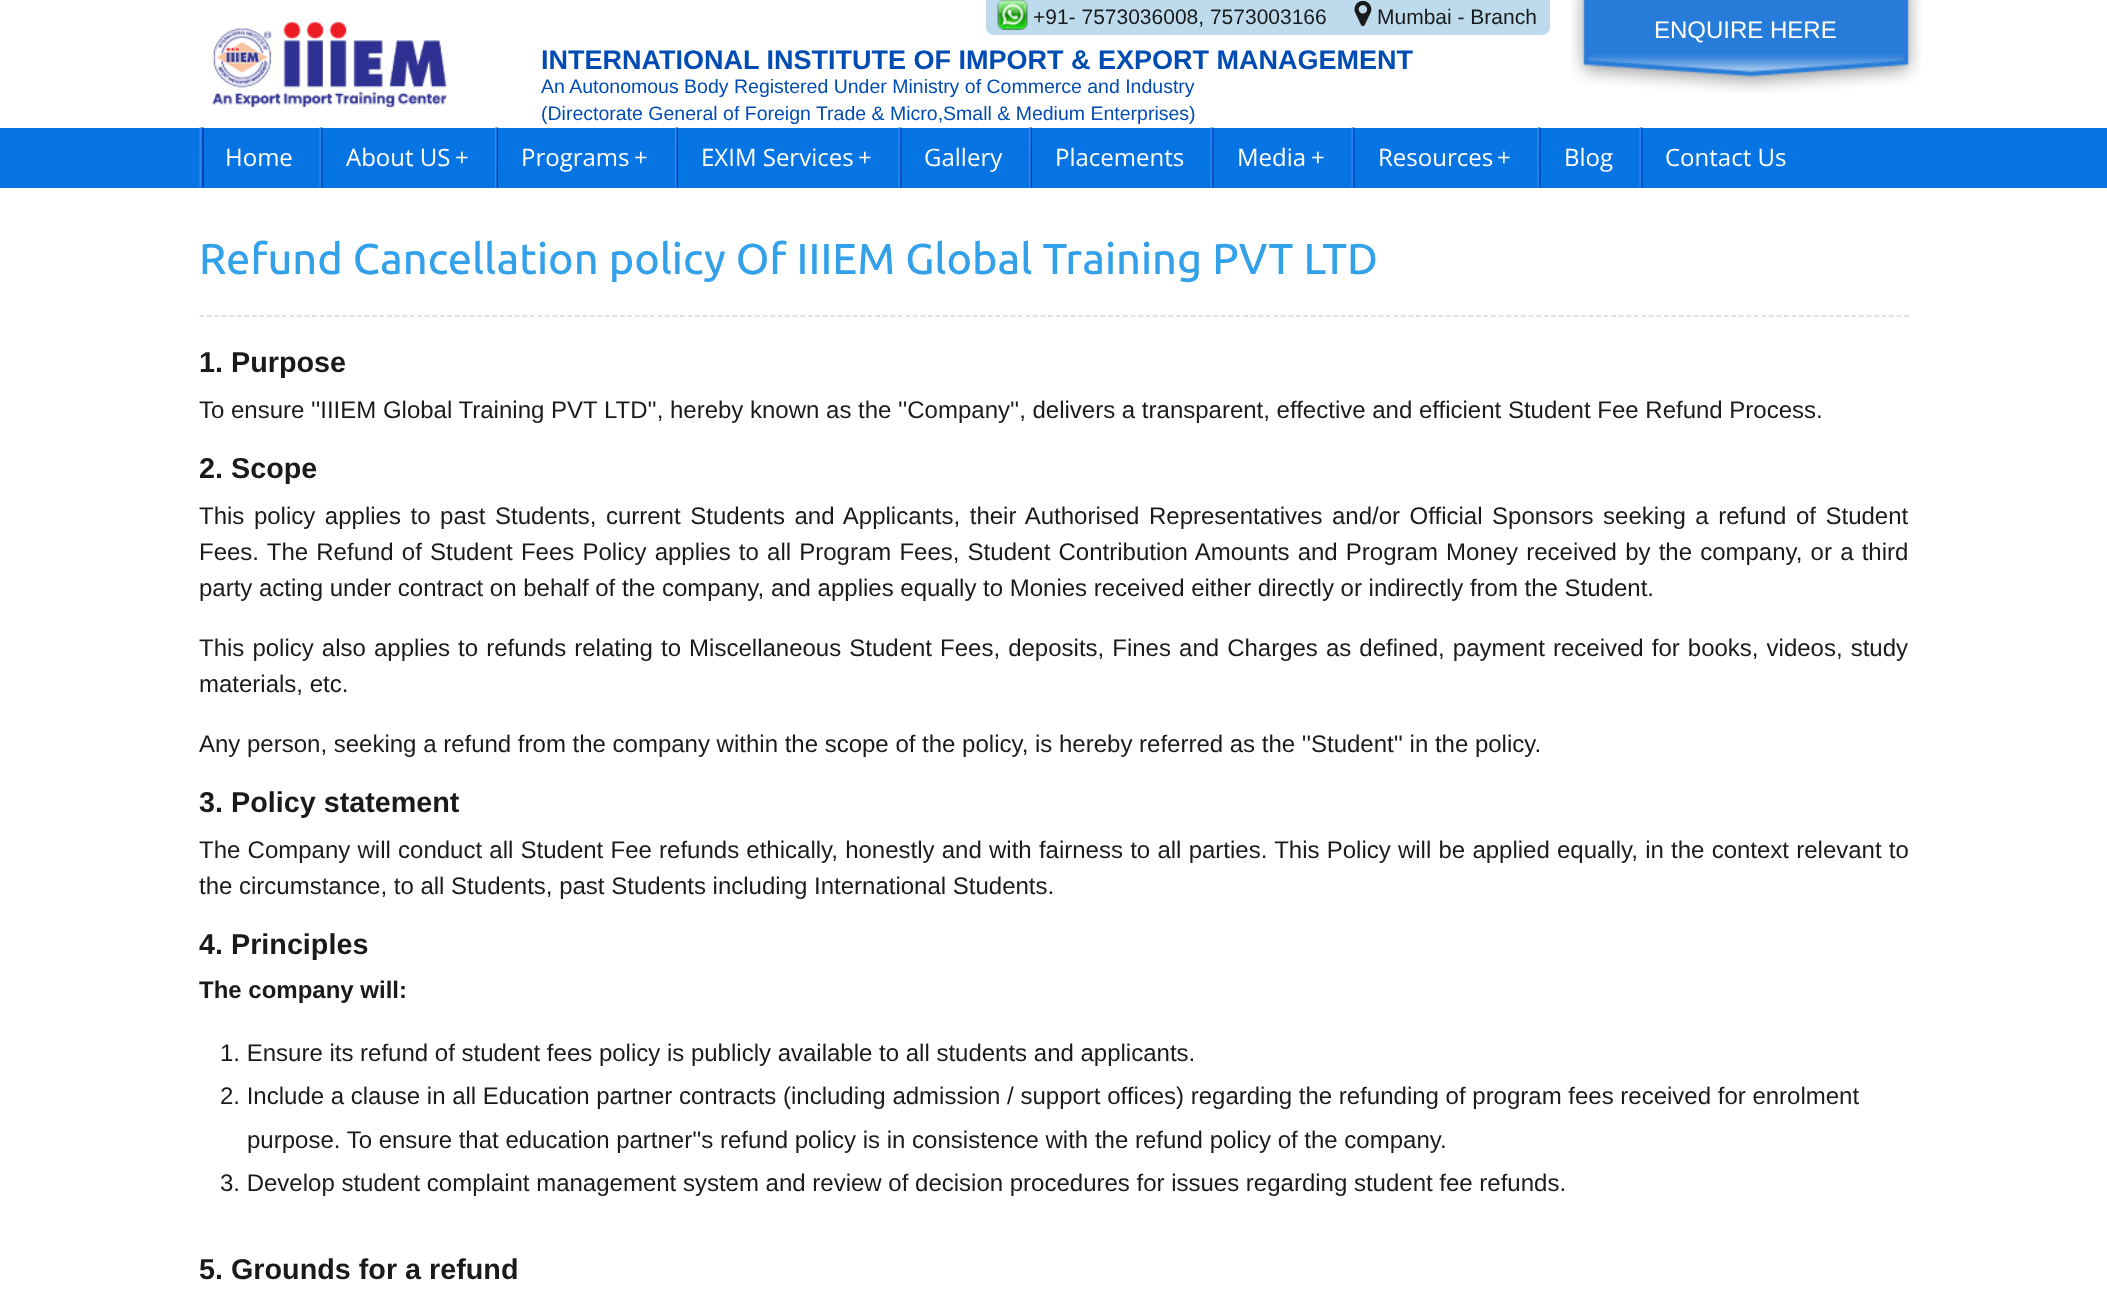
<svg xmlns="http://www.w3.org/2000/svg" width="2107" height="1295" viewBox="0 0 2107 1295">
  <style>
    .t1 { font: 21px Liberation Sans; fill: #181a1b; }
    .t2 { font: 24px Liberation Sans; fill: #fff; }
    .t3 { font: bold 27px Liberation Sans; fill: #004cb2; }
    .t4 { font: 19.5px Liberation Sans; fill: #004cb2; }
    .t5 { font: 24px Open Sans; fill: #fff; }
    .t6 { font: 500 43.2px Ubuntu; fill: #33a1ea; }
    .t7 { font: bold 28.75px Liberation Sans; fill: #181a1b; }
    .t8 { font: 24px Liberation Sans; fill: #181a1b; }
    .t9 { font: bold 24px Liberation Sans; fill: #181a1b; }
  </style>
  <rect width="100%" height="100%" fill="#fff"/>
  <rect x="0" y="128" width="2107" height="60" fill="#0674e3"/>
  <image x="212" y="22" width="235" height="86" href="images/1.png"/>
  <path d="M986 0H1550V27C1550 31.5 1546.5 35 1542 35H994C989.5 35 986 31.5 986 27Z" fill="#bedbed"/>
  <image x="997" y="0" width="31" height="30" href="images/2.png"/>
  <text x="1033" y="24" class="t1">+91- 7573036008, 7573003166</text>
  <image x="1354" y="0" width="18" height="27" href="images/3.png"/>
  <text x="1377" y="24" class="t1">Mumbai - Branch</text>
  <image x="1571" y="0" width="350" height="93" href="images/4.png"/>
  <text x="1654" y="38" class="t2">ENQUIRE HERE</text>
  <text x="541" y="69" class="t3">INTERNATIONAL INSTITUTE OF IMPORT &amp; EXPORT MANAGEMENT</text>
  <text x="541" y="93" class="t4">An Autonomous Body Registered Under Ministry of Commerce and Industry</text>
  <text x="541" y="120" class="t4">(Directorate General of Foreign Trade &amp; Micro,Small &amp; Medium Enterprises)</text>
  <image x="199" y="127" width="5" height="61" href="images/5.png"/>
  <text x="225" y="166" class="t5">Home</text>
  <image x="319" y="127" width="4" height="61" href="images/6.png"/>
  <text x="346" y="166" class="t5">About US</text>
  <text x="455" y="166" class="t5">+</text>
  <image x="495" y="127" width="3" height="61" href="images/7.png"/>
  <text x="521" y="166" class="t5">Programs</text>
  <text x="634" y="166" class="t5">+</text>
  <image x="675" y="127" width="3" height="61" href="images/8.png"/>
  <text x="701" y="166" class="t5">EXIM Services</text>
  <text x="858" y="166" class="t5">+</text>
  <image x="898" y="127" width="4" height="61" href="images/6.png"/>
  <text x="924" y="166" class="t5">Gallery</text>
  <image x="1029" y="127" width="3" height="61" href="images/7.png"/>
  <text x="1055" y="166" class="t5">Placements</text>
  <image x="1210" y="127" width="4" height="61" href="images/6.png"/>
  <text x="1237" y="166" class="t5">Media</text>
  <text x="1311" y="166" class="t5">+</text>
  <image x="1351" y="127" width="4" height="61" href="images/6.png"/>
  <text x="1378" y="166" class="t5">Resources</text>
  <text x="1497" y="166" class="t5">+</text>
  <image x="1537" y="127" width="4" height="61" href="images/6.png"/>
  <text x="1564" y="166" class="t5">Blog</text>
  <image x="1639" y="127" width="4" height="61" href="images/6.png"/>
  <text x="1665" y="166" class="t5">Contact Us</text>
  <text x="199" y="274" class="t6">Refund Cancellation policy Of IIIEM Global Training PVT LTD</text>
  <path d="M199.5 316H1909.5" fill="none" stroke="#d7d7d7" stroke-width="1.5" stroke-dasharray="4.5 3.01"/>
  <text x="199" y="372" class="t7">1. Purpose</text>
  <text x="199" y="418" class="t8">To ensure ''IIIEM Global Training PVT LTD'', hereby known as the ''Company'', delivers a transparent, effective and efficient Student Fee Refund Process.</text>
  <text x="199" y="478" class="t7">2. Scope</text>
  <text x="199" y="524" word-spacing="2.9" class="t8">This policy applies to past Students, current Students and Applicants, their Authorised Representatives and/or Official Sponsors seeking a refund of Student</text>
  <text x="199" y="560" word-spacing="1.5" class="t8">Fees. The Refund of Student Fees Policy applies to all Program Fees, Student Contribution Amounts and Program Money received by the company, or a third</text>
  <text x="199" y="596" class="t8">party acting under contract on behalf of the company, and applies equally to Monies received either directly or indirectly from the Student.</text>
  <text x="199" y="656" word-spacing="1.4" class="t8">This policy also applies to refunds relating to Miscellaneous Student Fees, deposits, Fines and Charges as defined, payment received for books, videos, study</text>
  <text x="199" y="692" class="t8">materials, etc.</text>
  <text x="199" y="752" class="t8">Any person, seeking a refund from the company within the scope of the policy, is hereby referred as the ''Student'' in the policy.</text>
  <text x="199" y="812" class="t7">3. Policy statement</text>
  <text x="199" y="858" word-spacing="0.55" class="t8">The Company will conduct all Student Fee refunds ethically, honestly and with fairness to all parties. This Policy will be applied equally, in the context relevant to</text>
  <text x="199" y="894" class="t8">the circumstance, to all Students, past Students including International Students.</text>
  <text x="199" y="954" class="t7">4. Principles</text>
  <text x="199" y="998" class="t9">The company will:</text>
  <text x="220" y="1061" class="t8">1. Ensure its refund of student fees policy is publicly available to all students and applicants.</text>
  <text x="220" y="1104" class="t8">2. Include a clause in all Education partner contracts (including admission / support offices) regarding the refunding of program fees received for enrolment</text>
  <text x="247" y="1148" class="t8">purpose. To ensure that education partner''s refund policy is in consistence with the refund policy of the company.</text>
  <text x="220" y="1191" class="t8">3. Develop student complaint management system and review of decision procedures for issues regarding student fee refunds.</text>
  <text x="199" y="1279" class="t7">5. Grounds for a refund</text>
</svg>
